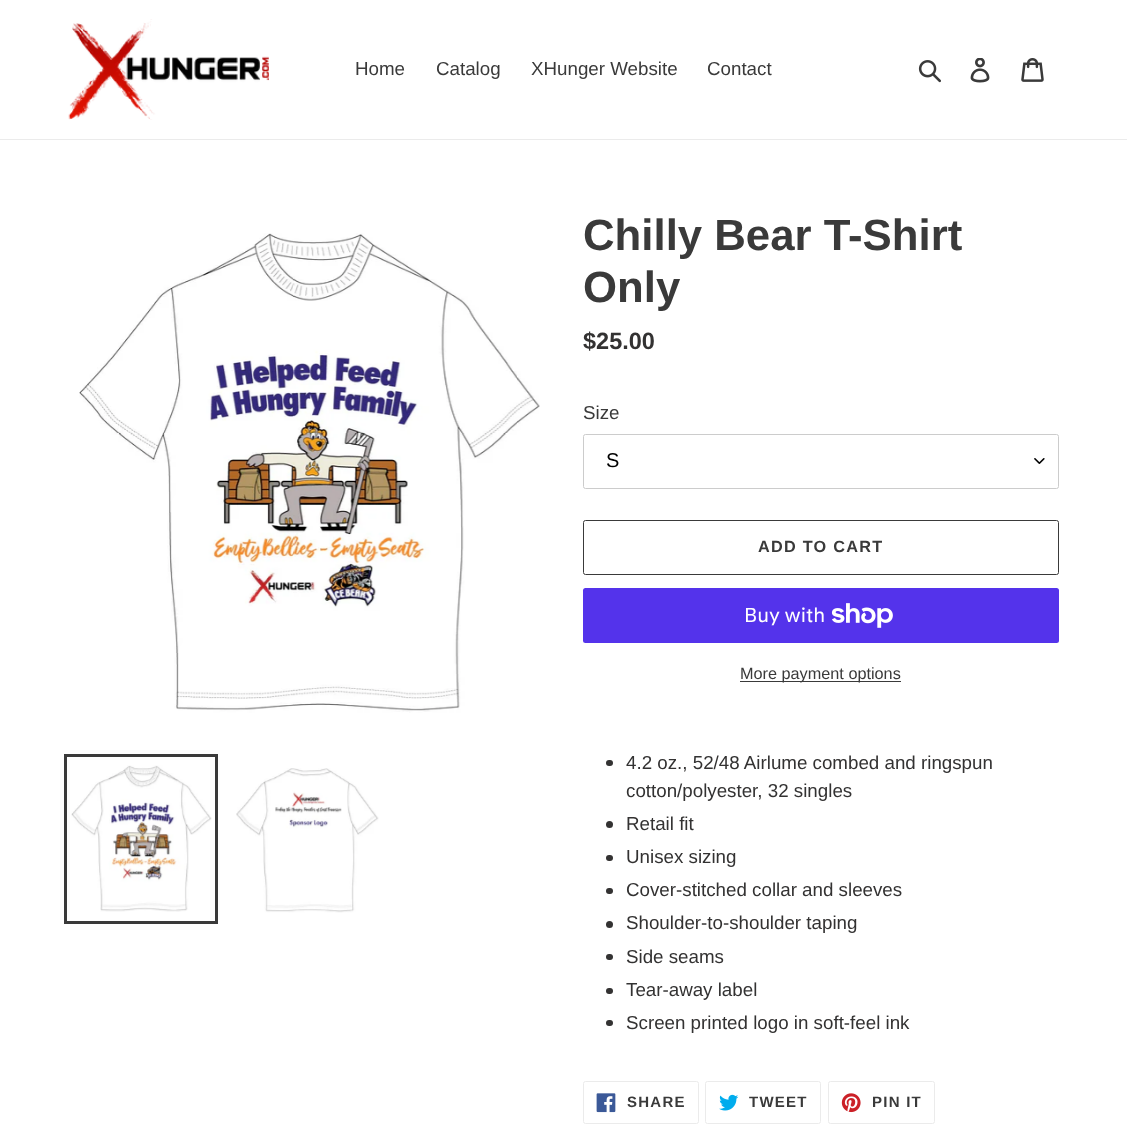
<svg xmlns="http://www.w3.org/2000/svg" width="1127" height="1138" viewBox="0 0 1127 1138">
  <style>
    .t1 { font: 18.75px Liberation Sans; fill: #3a3a3a; }
    .t2 { font: bold 43.75px Liberation Sans; fill: #3a3a3a; }
    .t3 { font: bold 23.5px Liberation Sans; fill: #333232; }
    .t4 { font: 20px Liberation Sans; fill: #000; }
    .t5 { font: bold 16.25px Liberation Sans; letter-spacing: 1.25px; fill: #3a3a3a; }
    .t6 { font: 20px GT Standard; fill: #fff; }
    .t7 { font: 16.25px Liberation Sans; fill: #3a3a3a; }
    .t8 { font: 18.75px Liberation Sans; fill: #333232; }
    .t9 { font: bold 15px Liberation Sans; letter-spacing: 1.25px; fill: #3a3a3a; }
  </style>
  <rect width="100%" height="100%" fill="#fff"/>
  <rect x="0" y="139" width="1127" height="1" fill="#ebebeb"/>
  <image x="68" y="19" width="201" height="101" href="images/1.png"/>
  <text x="355" y="75" class="t1">Home</text>
  <text x="436" y="75" class="t1">Catalog</text>
  <text x="531" y="75" class="t1">XHunger Website</text>
  <text x="707" y="75" class="t1">Contact</text>
  <image x="918" y="60" width="23" height="23" href="images/2.png"/>
  <image x="970" y="58" width="20" height="25" href="images/3.png"/>
  <image x="1021" y="58" width="23" height="24" href="images/4.png"/>
  <image x="79" y="233" width="461" height="480" href="images/5.png"/>
  <rect x="65.5" y="755.5" width="151" height="167" fill="none" stroke="#3a3a3a" stroke-width="3"/>
  <image x="71" y="765" width="141" height="147" href="images/6.png"/>
  <image x="236" y="768" width="143" height="145" href="images/7.png"/>
  <text x="583" y="250" class="t2">Chilly Bear T-Shirt</text>
  <text x="583" y="302" class="t2">Only</text>
  <text x="583" y="349" class="t3">$25.00</text>
  <text x="583" y="419" class="t1">Size</text>
  <image x="1034" y="458" width="11" height="6" href="images/8.png"/>
  <rect x="583.5" y="434.5" width="475" height="54" rx="2" fill="none" stroke="#ccc"/>
  <text x="606" y="467" class="t4">S</text>
  <rect x="583.5" y="520.5" width="475" height="54" rx="2" fill="none" stroke="#3a3a3a"/>
  <text x="758" y="552" class="t5">ADD TO CART</text>
  <rect x="583" y="588" width="476" height="55" rx="2.5" fill="#5433eb"/>
  <text x="744" y="622" class="t6">Buy with</text>
  <image x="831" y="603" width="62" height="25" href="images/9.png"/>
  <rect x="740" y="681" width="161" height="1" fill="#3a3a3a"/>
  <text x="740" y="679" class="t7">More payment options</text>
  <rect x="606" y="760" width="7" height="6" rx="3" fill="#333232"/>
  <text x="626" y="769" class="t8">4.2 oz., 52/48 Airlume combed and ringspun</text>
  <text x="626" y="797" class="t8">cotton/polyester, 32 singles</text>
  <circle cx="609.5" cy="824.5" r="3.5" fill="#333232"/>
  <text x="626" y="830" class="t8">Retail fit</text>
  <rect x="606" y="855" width="7" height="6" rx="3" fill="#333232"/>
  <text x="626" y="863" class="t8">Unisex sizing</text>
  <rect x="606" y="888" width="7" height="6" rx="3" fill="#333232"/>
  <text x="626" y="896" class="t8">Cover-stitched collar and sleeves</text>
  <circle cx="609.5" cy="924.5" r="3.5" fill="#333232"/>
  <text x="626" y="929" class="t8">Shoulder-to-shoulder taping</text>
  <rect x="606" y="954" width="7" height="6" rx="3" fill="#333232"/>
  <text x="626" y="963" class="t8">Side seams</text>
  <rect x="606" y="988" width="7" height="6" rx="3" fill="#333232"/>
  <text x="626" y="996" class="t8">Tear-away label</text>
  <rect x="606" y="1020" width="7" height="6" rx="3" fill="#333232"/>
  <text x="626" y="1029" class="t8">Screen printed logo in soft-feel ink</text>
  <rect x="583.5" y="1081.5" width="115" height="42" rx="2" fill="none" stroke="#ebebeb"/>
  <image x="596" y="1093" width="20" height="20" href="images/10.png"/>
  <text x="627" y="1107" class="t9">SHARE</text>
  <rect x="705.5" y="1081.5" width="115" height="42" rx="2" fill="none" stroke="#ebebeb"/>
  <image x="719" y="1094" width="20" height="17" href="images/11.png"/>
  <text x="749" y="1107" class="t9">TWEET</text>
  <rect x="828.5" y="1081.5" width="106" height="42" rx="2" fill="none" stroke="#ebebeb"/>
  <image x="841" y="1093" width="20" height="20" href="images/12.png"/>
  <text x="872" y="1107" class="t9">PIN IT</text>
</svg>
